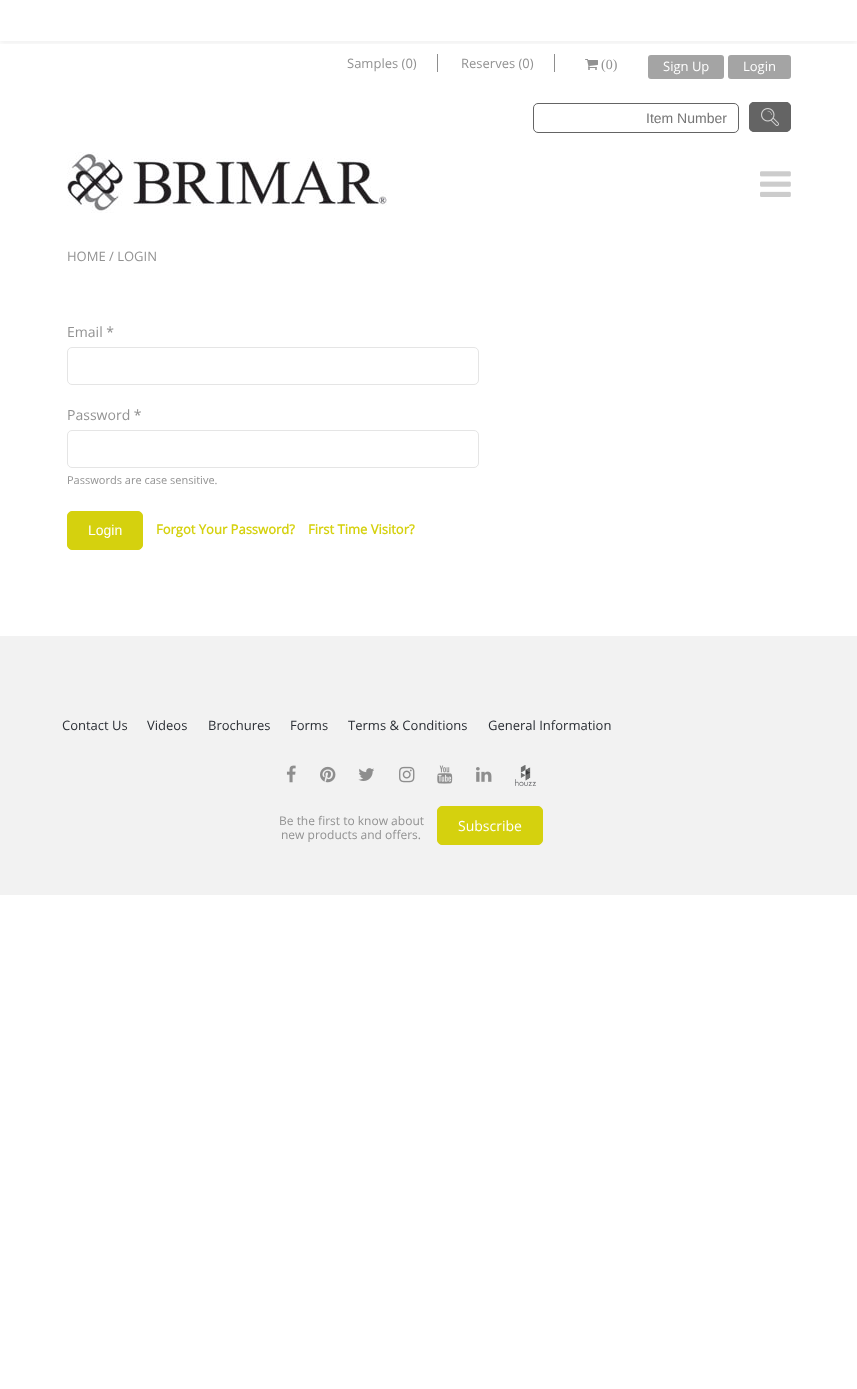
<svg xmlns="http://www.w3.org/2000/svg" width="857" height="1389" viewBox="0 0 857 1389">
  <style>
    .t1 { font: 13px Open Sans; fill: #929292; }
    .t2 { font: 14px Liberation Serif; fill: #929292; }
    .t3 { font: 13px Open Sans; fill: #fff; }
    .t4 { font: 14px Liberation Sans; fill: #757575; }
    .t5 { font: 14px Open Sans; fill: #929292; }
    .t6 { font: 11px Open Sans; fill: #929292; }
    .t7 { font: 14px Liberation Sans; fill: #fff; }
    .t8 { font: bold 13px Open Sans; fill: #d5d10e; }
    .t9 { font: 13px Open Sans; fill: #292d33; }
    .t10 { font: 12px Open Sans; fill: #929292; }
    .t11 { font: 14px Open Sans; fill: #fff; }
  </style>
  <defs>
    <clipPath id="clip1"><rect x="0" y="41" width="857" height="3"/></clipPath>
  </defs>
  <rect width="100%" height="100%" fill="#fff"/>
  <g clip-path="url(#clip1)">
    <rect x="0" y="3" width="857" height="41" fill="#0000000d" filter="blur(2px)"/>
  </g>
  <text x="347" y="68" class="t1">Samples (0)</text>
  <rect x="437" y="54" width="1" height="18" fill="#8e8e8e"/>
  <text x="461" y="68" class="t1">Reserves (0)</text>
  <rect x="554" y="54" width="1" height="18" fill="#8e8e8e"/>
  <image x="585" y="59" width="13" height="11" href="images/1.png"/>
  <text x="601" y="69" class="t2">(0)</text>
  <rect x="648" y="55" width="76" height="24" rx="3" fill="#a4a4a4"/>
  <text x="663" y="71" class="t3">Sign Up</text>
  <rect x="728" y="55" width="63" height="24" rx="3" fill="#a4a4a4"/>
  <text x="743" y="71" class="t3">Login</text>
  <rect x="533.5" y="103.5" width="205" height="29" rx="4.5" fill="none" stroke="#646464"/>
  <text x="646" y="123" class="t4">Item Number</text>
  <rect x="749" y="102" width="42" height="30" rx="5" fill="#646464"/>
  <image x="761" y="108" width="18" height="18" href="images/2.png"/>
  <rect x="749.5" y="102.5" width="41" height="29" rx="4.5" fill="none" stroke="#646464"/>
  <image x="67" y="152" width="320" height="61" href="images/3.png"/>
  <image x="760" y="171" width="31" height="26" href="images/4.png"/>
  <text x="67" y="261" class="t1">HOME / LOGIN</text>
  <text x="67" y="337" class="t5">Email *</text>
  <rect x="67.5" y="347.5" width="411" height="37" rx="4.5" fill="none" stroke="#e5e5e5"/>
  <text x="67" y="420" class="t5">Password *</text>
  <rect x="67.5" y="430.5" width="411" height="37" rx="4.5" fill="none" stroke="#e5e5e5"/>
  <text x="67" y="484" class="t6">Passwords are case sensitive.</text>
  <rect x="67.5" y="511.5" width="75" height="38" rx="4.5" fill="#d5d10e" stroke="#d5d10e"/>
  <text x="88" y="535" class="t7">Login</text>
  <text x="156" y="534" class="t8">Forgot Your Password?</text>
  <text x="308" y="534" class="t8">First Time Visitor?</text>
  <rect x="0" y="636" width="857" height="259" fill="#f2f2f2"/>
  <text x="62" y="730" class="t9">Contact Us</text>
  <text x="147" y="730" class="t9">Videos</text>
  <text x="208" y="730" class="t9">Brochures</text>
  <text x="290" y="730" class="t9">Forms</text>
  <text x="348" y="730" class="t9">Terms &amp; Conditions</text>
  <text x="488" y="730" class="t9">General Information</text>
  <image x="286" y="765" width="10" height="18" href="images/5.png"/>
  <image x="320" y="766" width="16" height="17" href="images/6.png"/>
  <image x="358" y="768" width="16" height="13" href="images/7.png"/>
  <image x="399" y="766" width="16" height="17" href="images/8.png"/>
  <image x="437" y="765" width="16" height="19" href="images/9.png"/>
  <image x="476" y="767" width="16" height="15" href="images/10.png"/>
  <image x="515" y="765" width="21" height="21" href="images/11.png"/>
  <text x="279" y="825" class="t10">Be the first to know about</text>
  <text x="281" y="839" class="t10">new products and offers.</text>
  <rect x="437.5" y="806.5" width="105" height="38" rx="4.5" fill="#d5d10e" stroke="#d5d10e"/>
  <text x="458" y="831" class="t11">Subscribe</text>
</svg>
